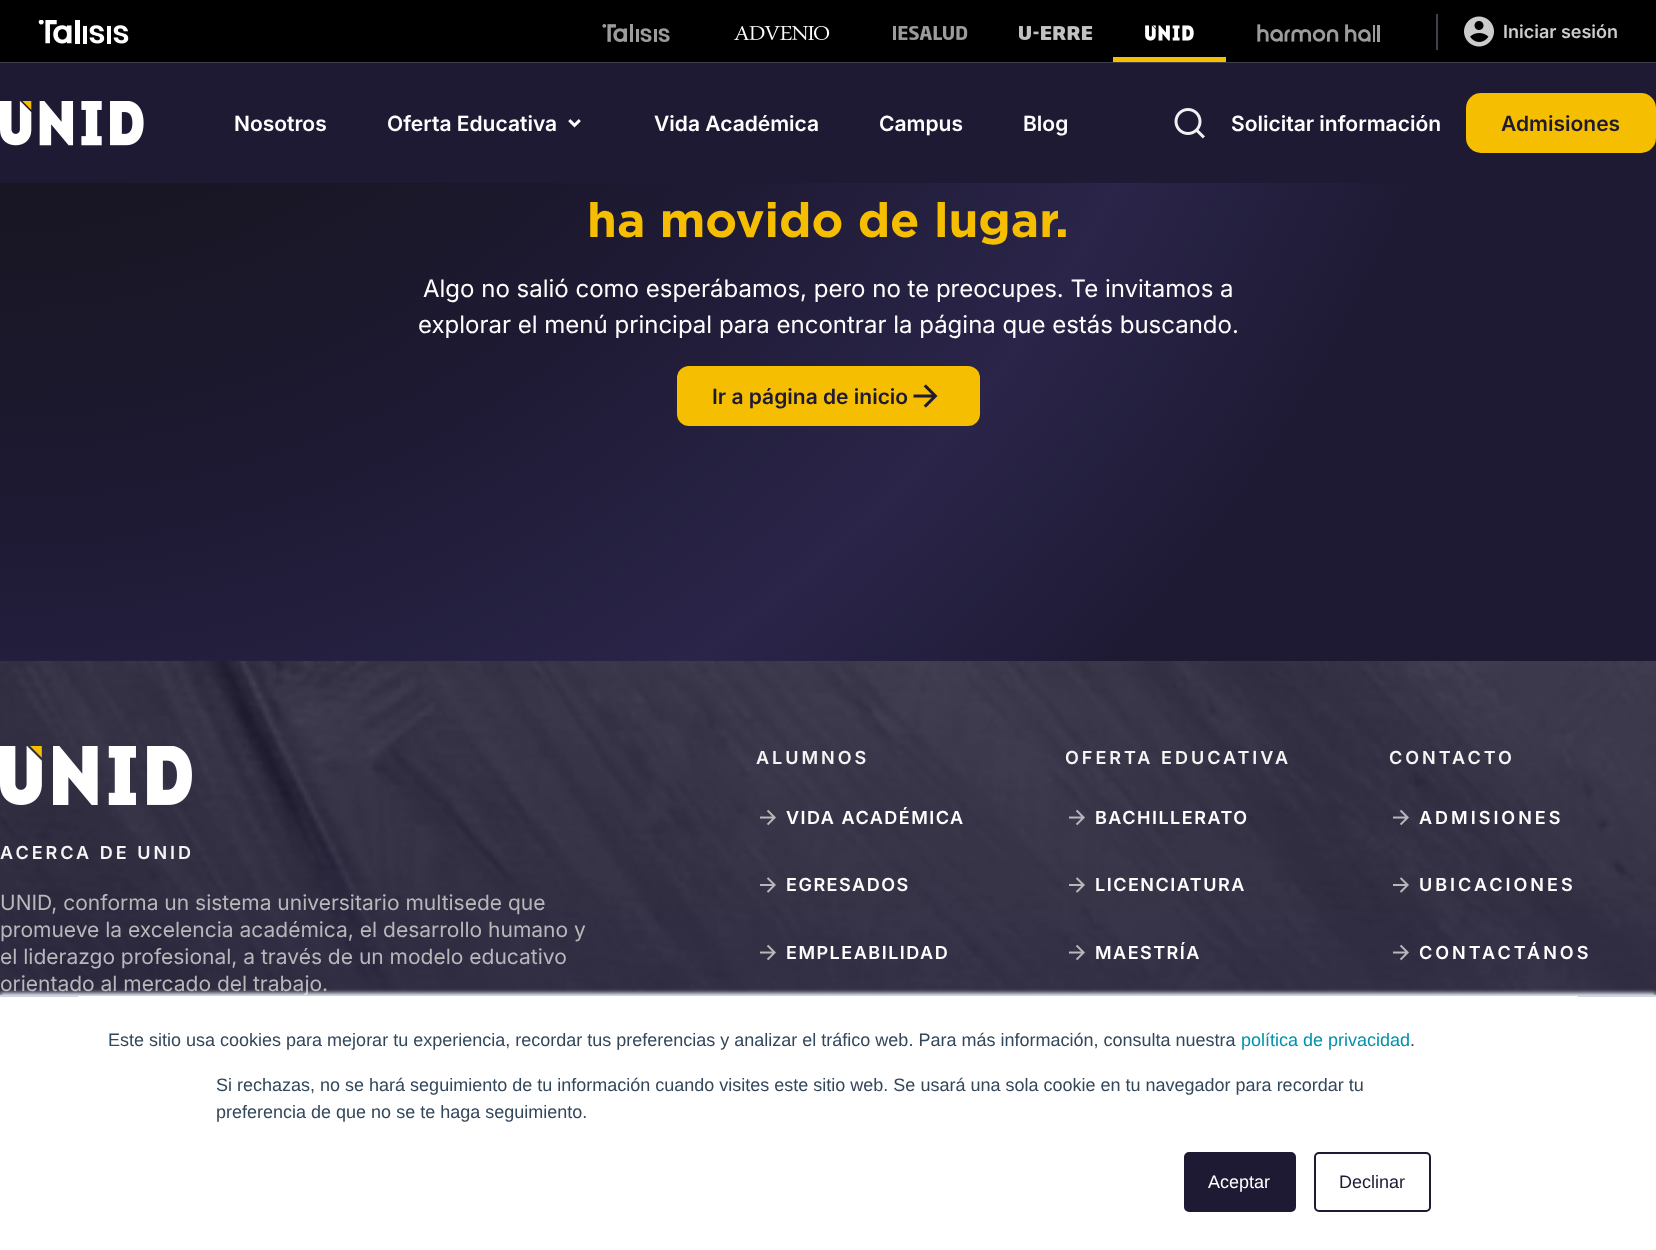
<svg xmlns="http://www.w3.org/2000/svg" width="1656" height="1250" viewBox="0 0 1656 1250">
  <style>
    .t1 { font: 600 18px Inter; fill: #ccc; }
    .t2 { font: 600 21px Inter; fill: #fff; }
    .t3 { font: 600 21px Inter; fill: #1e1a34; }
    .t4 { font: bold 48px Gotham; fill: #f6be00; }
    .t5 { font: 24px Inter; fill: #fff; }
    .t6 { font: 600 18px Inter; letter-spacing: 3px; fill: #f5f5f5; }
    .t7 { font: 21px Inter; fill: #b8b8bb; }
    .t8 { font: 600 18px Inter; letter-spacing: 1.5px; fill: #fff; }
    .t9 { font: 600 18px Inter; letter-spacing: 3px; fill: #fff; }
    .t10 { font: 18px Liberation Sans; fill: #33475b; }
    .t11 { font: 18px Liberation Sans; fill: #0091ae; }
    .t12 { font: 18px Liberation Sans; fill: #fff; }
    .t13 { font: 18px Liberation Sans; fill: #1e1a34; }
  </style>
  <defs>
    <radialGradient id="g1" gradientUnits="userSpaceOnUse" cx="0" cy="-388" r="1961"><stop offset="0.12" stop-color="#111"/><stop offset="0.47" stop-color="#1e1a34"/><stop offset="0.64" stop-color="#2a2549"/><stop offset="0.78" stop-color="#1e1a34"/></radialGradient>
  </defs>
  <rect width="100%" height="100%" fill="#fff"/>
  <rect x="0" y="0" width="1656" height="62" fill="#000"/>
  <rect x="0" y="62" width="1656" height="1" fill="#404150"/>
  <image x="38" y="20" width="91" height="24" href="images/1.png"/>
  <image x="602" y="24" width="68" height="18" href="images/2.png"/>
  <image x="734" y="26" width="96" height="14" href="images/3.png"/>
  <image x="893" y="26" width="75" height="14" href="images/4.png"/>
  <image x="1019" y="26" width="74" height="14" href="images/5.png"/>
  <rect x="1113" y="57" width="113" height="5" fill="#f6be00"/>
  <image x="1145" y="25" width="49" height="16" href="images/6.png"/>
  <image x="1257" y="24" width="123" height="18" href="images/7.png"/>
  <rect x="1436" y="14" width="2" height="36" fill="#404150"/>
  <image x="1464" y="16" width="30" height="31" href="images/8.png"/>
  <text x="1503" y="38" class="t1">Iniciar sesión</text>
  <rect x="0" y="63" width="1656" height="120" fill="#1e1a34"/>
  <image x="0" y="101" width="144" height="45" href="images/9.png"/>
  <text x="234" y="131" class="t2">Nosotros</text>
  <text x="387" y="131" class="t2">Oferta Educativa</text>
  <image x="568" y="119" width="13" height="9" href="images/10.png"/>
  <text x="654" y="131" class="t2">Vida Académica</text>
  <text x="879" y="131" class="t2">Campus</text>
  <text x="1023" y="131" class="t2">Blog</text>
  <image x="1174" y="108" width="31" height="31" href="images/11.png"/>
  <text x="1231" y="131" class="t2">Solicitar información</text>
  <rect x="1466" y="93" width="190" height="60" rx="15" fill="#f6be00"/>
  <text x="1501" y="131" class="t3">Admisiones</text>
  <rect x="0" y="183" width="1656" height="478" fill="url(#g1)"/>
  <text x="587" y="237" class="t4">ha movido de lugar.</text>
  <text x="423" y="297" class="t5">Algo no salió como esperábamos, pero no te preocupes. Te invitamos a</text>
  <text x="418" y="333" class="t5">explorar el menú principal para encontrar la página que estás buscando.</text>
  <rect x="677" y="366" width="303" height="60" rx="12" fill="#f6be00"/>
  <text x="712" y="404" class="t3">Ir a página de inicio</text>
  <image x="913" y="384" width="25" height="24" href="images/12.png"/>
  <image x="0" y="661" width="1656" height="334" href="images/13.png"/>
  <image x="0" y="746" width="192" height="59" href="images/14.png"/>
  <text x="0" y="859" class="t6">ACERCA DE UNID</text>
  <text x="0" y="910" class="t7">UNID, conforma un sistema universitario multisede que</text>
  <text x="0" y="937" class="t7">promueve la excelencia académica, el desarrollo humano y</text>
  <text x="0" y="964" class="t7">el liderazgo profesional, a través de un modelo educativo</text>
  <text x="0" y="991" class="t7">orientado al mercado del trabajo.</text>
  <text x="756" y="764" class="t6">ALUMNOS</text>
  <image x="760" y="809" width="16" height="17" href="images/15.png"/>
  <text x="786" y="824" class="t8">VIDA ACADÉMICA</text>
  <image x="760" y="877" width="16" height="16" href="images/16.png"/>
  <text x="786" y="891" class="t8">EGRESADOS</text>
  <image x="760" y="944" width="16" height="17" href="images/17.png"/>
  <text x="786" y="959" class="t8">EMPLEABILIDAD</text>
  <text x="1065" y="764" class="t6">OFERTA EDUCATIVA</text>
  <image x="1069" y="809" width="16" height="17" href="images/18.png"/>
  <text x="1095" y="824" class="t8">BACHILLERATO</text>
  <image x="1069" y="877" width="16" height="16" href="images/19.png"/>
  <text x="1095" y="891" class="t8">LICENCIATURA</text>
  <image x="1069" y="944" width="16" height="17" href="images/20.png"/>
  <text x="1095" y="959" class="t8">MAESTRÍA</text>
  <text x="1389" y="764" class="t6">CONTACTO</text>
  <image x="1393" y="809" width="16" height="17" href="images/21.png"/>
  <text x="1419" y="824" class="t9">ADMISIONES</text>
  <image x="1393" y="877" width="16" height="16" href="images/22.png"/>
  <text x="1419" y="891" class="t9">UBICACIONES</text>
  <image x="1393" y="944" width="16" height="17" href="images/23.png"/>
  <text x="1419" y="959" class="t9">CONTACTÁNOS</text>
  <rect x="0" y="993" width="1656" height="257" fill="#eaf0f6" filter="blur(2px)"/>
  <rect x="0" y="997" width="1656" height="253" fill="#fff"/>
  <rect x="0" y="995" width="1656" height="2" fill="#cbd6e2"/>
  <rect x="78" y="996" width="1500" height="1" fill="#fff"/>
  <text x="108" y="1046" class="t10">Este sitio usa cookies para mejorar tu experiencia, recordar tus preferencias y analizar el tráfico web. Para más información, consulta nuestra</text>
  <text x="1241" y="1046" class="t11">política de privacidad</text>
  <text x="1410" y="1046" class="t10">.</text>
  <text x="216" y="1091" class="t10">Si rechazas, no se hará seguimiento de tu información cuando visites este sitio web. Se usará una sola cookie en tu navegador para recordar tu</text>
  <text x="216" y="1118" class="t10">preferencia de que no se te haga seguimiento.</text>
  <rect x="1185" y="1153" width="110" height="58" rx="4" fill="#1e1a34" stroke="#1e1a34" stroke-width="2"/>
  <text x="1208" y="1188" class="t12">Aceptar</text>
  <rect x="1315" y="1153" width="115" height="58" rx="4" fill="none" stroke="#1e1a34" stroke-width="2"/>
  <text x="1339" y="1188" class="t13">Declinar</text>
</svg>
